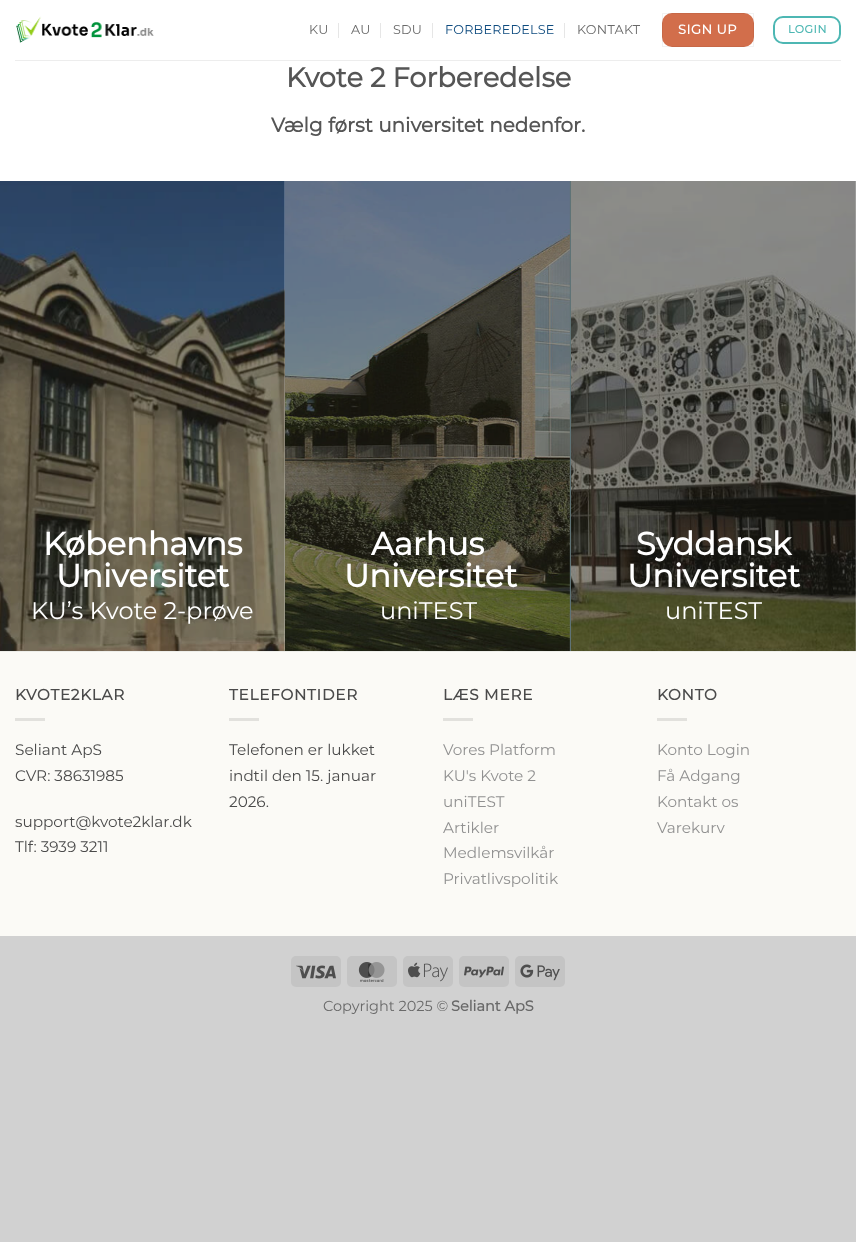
<svg xmlns="http://www.w3.org/2000/svg" width="856" height="1242" viewBox="0 0 856 1242">
  <style>
    .t1 { font: 100 12.75px Montserrat; letter-spacing: 0.25px; fill: #696969; }
    .t2 { font: 100 12.75px Montserrat; letter-spacing: 0.25px; fill: #0e4b7f; }
    .t3 { font: bold 13px Montserrat; letter-spacing: 0.5px; fill: #fff; }
    .t4 { font: bold 11px Montserrat; letter-spacing: 0.5px; fill: #4db7b3; }
    .t5 { font: bold 27.25px Montserrat; fill: #555; }
    .t6 { font: bold 20px Montserrat; fill: #555; }
    .t7 { font: bold 32px Montserrat; fill: #fff; }
    .t8 { font: 100 24px Montserrat; fill: #fff; }
    .t9 { font: bold 15.25px Montserrat; letter-spacing: 0.75px; fill: #4a4a4a; }
    .t10 { font: 100 15.25px Montserrat; fill: #4a4a4a; }
    .t11 { font: 100 15.25px Montserrat; fill: #919191; }
    .t12 { font: 100 14.5px Montserrat; fill: #696969; }
    .t13 { font: bold 14.5px Montserrat; fill: #696969; }
  </style>
  <rect width="100%" height="100%" fill="#d1d1d1"/>
  <rect x="0" y="0" width="856" height="651" fill="#fff"/>
  <image x="16" y="16" width="138" height="27" href="images/1.png"/>
  <text x="309" y="34" class="t1">KU</text>
  <rect x="338" y="23" width="1" height="15" fill="#e6e6e6"/>
  <text x="351" y="34" class="t1">AU</text>
  <rect x="380" y="23" width="1" height="15" fill="#e6e6e6"/>
  <text x="393" y="34" class="t1">SDU</text>
  <rect x="432" y="23" width="1" height="15" fill="#e6e6e6"/>
  <text x="445" y="34" class="t2">FORBEREDELSE</text>
  <rect x="564" y="23" width="1" height="15" fill="#e6e6e6"/>
  <text x="577" y="34" class="t1">KONTAKT</text>
  <rect x="662" y="13" width="92" height="34" rx="10" fill="#d26e4b"/>
  <rect x="662.5" y="13.5" width="91" height="33" fill="none" stroke="#0000000d"/>
  <text x="678" y="34" class="t3">SIGN UP</text>
  <rect x="774" y="17" width="66" height="26" rx="9" fill="none" stroke="#4db7b3" stroke-width="2"/>
  <text x="788" y="33" class="t4">LOGIN</text>
  <rect x="15" y="60" width="826" height="1" fill="#ededed"/>
  <text x="286" y="87" class="t5">Kvote 2 Forberedelse</text>
  <text x="271" y="132" class="t6">Vælg først universitet nedenfor.</text>
  <image x="0" y="181" width="285" height="470" href="images/2.png"/>
  <text x="43" y="555" class="t7">Københavns</text>
  <text x="56" y="587" class="t7">Universitet</text>
  <text x="31" y="619" class="t8">KU’s Kvote 2-prøve</text>
  <rect x="569" y="181" width="2" height="470" fill="#5f7376"/>
  <image x="285" y="181" width="285" height="470" href="images/3.png"/>
  <text x="371" y="555" class="t7">Aarhus</text>
  <text x="344" y="587" class="t7">Universitet</text>
  <text x="380" y="619" class="t8">uniTEST</text>
  <image x="571" y="181" width="285" height="470" href="images/4.png"/>
  <text x="636" y="555" class="t7">Syddansk</text>
  <text x="627" y="587" class="t7">Universitet</text>
  <text x="665" y="619" class="t8">uniTEST</text>
  <rect x="0" y="652" width="856" height="284" fill="#fbfaf6"/>
  <rect x="0" y="651" width="856" height="1" fill="#eeeeea"/>
  <text x="15" y="700" class="t9">KVOTE2KLAR</text>
  <rect x="15" y="718" width="30" height="3" fill="#e2e1dd"/>
  <text x="15" y="755" class="t10">Seliant ApS</text>
  <text x="15" y="781" class="t10">CVR: 38631985</text>
  <text x="15" y="827" class="t10">support@kvote2klar.dk</text>
  <text x="15" y="852" class="t10">Tlf: 3939 3211</text>
  <text x="229" y="700" class="t9">TELEFONTIDER</text>
  <rect x="229" y="718" width="30" height="3" fill="#e2e1dd"/>
  <text x="229" y="755" class="t10">Telefonen er lukket</text>
  <text x="229" y="781" class="t10">indtil den 15. januar</text>
  <text x="229" y="807" class="t10">2026.</text>
  <text x="443" y="700" class="t9">LÆS MERE</text>
  <rect x="443" y="718" width="30" height="3" fill="#e2e1dd"/>
  <text x="443" y="755" class="t11">Vores Platform</text>
  <text x="443" y="781" class="t11">KU's Kvote 2</text>
  <text x="443" y="807" class="t11">uniTEST</text>
  <text x="443" y="833" class="t11">Artikler</text>
  <text x="443" y="858" class="t11">Medlemsvilkår</text>
  <text x="443" y="884" class="t11">Privatlivspolitik</text>
  <text x="657" y="700" class="t9">KONTO</text>
  <rect x="657" y="718" width="30" height="3" fill="#e2e1dd"/>
  <text x="657" y="755" class="t11">Konto Login</text>
  <text x="657" y="781" class="t11">Få Adgang</text>
  <text x="657" y="807" class="t11">Kontakt os</text>
  <text x="657" y="833" class="t11">Varekurv</text>
  <rect x="291" y="956" width="50" height="31" rx="5" fill="#c4c4c4"/>
  <image x="296" y="965" width="40" height="14" href="images/5.png"/>
  <rect x="347" y="956" width="50" height="31" rx="5" fill="#c4c4c4"/>
  <image x="358" y="962" width="27" height="20" href="images/6.png"/>
  <rect x="403" y="956" width="50" height="31" rx="5" fill="#c4c4c4"/>
  <image x="408" y="962" width="40" height="20" href="images/7.png"/>
  <rect x="459" y="956" width="50" height="31" rx="5" fill="#c4c4c4"/>
  <image x="464" y="966" width="40" height="12" href="images/8.png"/>
  <rect x="515" y="956" width="50" height="31" rx="5" fill="#c4c4c4"/>
  <image x="520" y="964" width="40" height="17" href="images/9.png"/>
  <text x="323" y="1011" class="t12">Copyright 2025 ©</text>
  <text x="451" y="1011" class="t13">Seliant ApS</text>
</svg>
